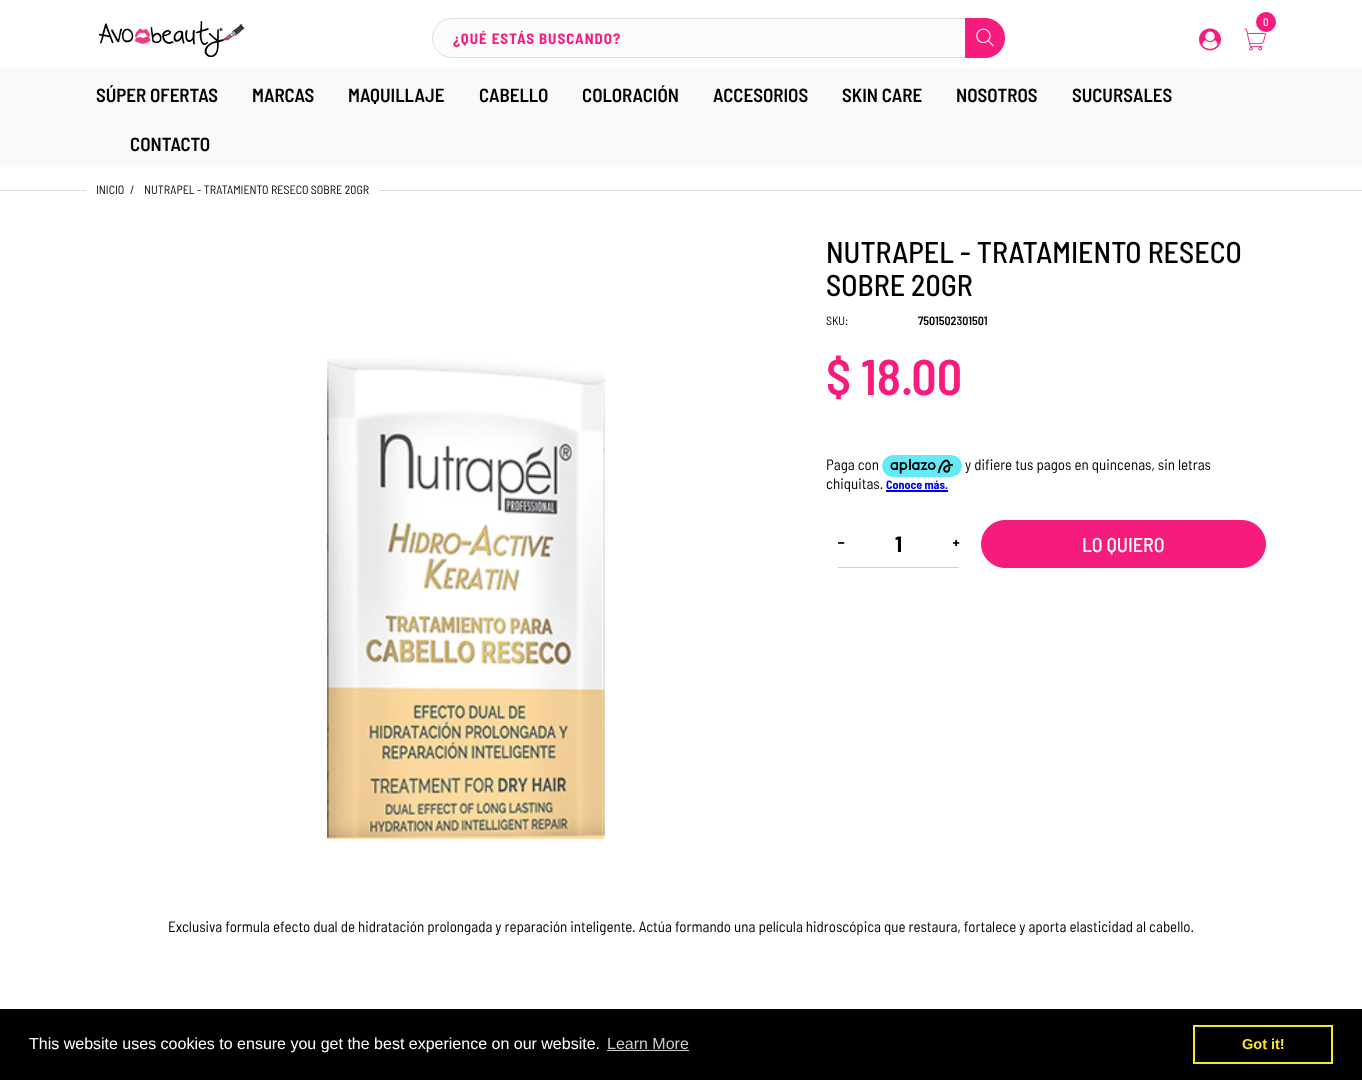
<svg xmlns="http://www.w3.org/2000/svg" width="1362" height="1080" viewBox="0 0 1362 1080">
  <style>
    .t1 { font: bold 15px Barlow Semi Condensed; letter-spacing: 1px; fill: #f51c7d; }
    .t2 { font: 500 11px Barlow Semi Condensed; fill: #fff; }
    .t3 { font: 600 19px Barlow Semi Condensed; fill: #000; }
    .t4 { font: 12px Barlow Semi Condensed; fill: #000; }
    .t5 { font: 500 30px Barlow Semi Condensed; fill: #000; }
    .t6 { font: 600 12px Barlow Semi Condensed; fill: #000; }
    .t7 { font: 600 50px Barlow Semi Condensed; fill: #f51c7d; }
    .t8 { font: 15px Barlow Semi Condensed; fill: #000; }
    .t9 { font: bold 12px Barlow Semi Condensed; fill: #00e; }
    .t10 { font: bold 22px Barlow Semi Condensed; fill: #000; }
    .t11 { font: 500 20px Barlow Semi Condensed; fill: #fff; }
    .t12 { font: 16px Liberation Sans; fill: #fff; }
    .t13 { font: 16px Liberation Sans; fill: #ccc; }
    .t14 { font: bold 14.5px Liberation Sans; fill: #f8e71c; }
  </style>
  <rect width="100%" height="100%" fill="#fff"/>
  <image x="98" y="21" width="147" height="36" href="images/1.png"/>
  <rect x="432.5" y="18.5" width="572" height="39" rx="19.5" fill="#fcfcfc" stroke="#ddd"/>
  <text x="453" y="44" class="t1">¿QUÉ ESTÁS BUSCANDO?</text>
  <path d="M965 18H985C996 18 1005 27 1005 38C1005 49 996 58 985 58H965Z" fill="#f51c7d"/>
  <image x="976" y="28" width="18" height="19" href="images/2.png"/>
  <image x="1244" y="28" width="22" height="23" href="images/3.png"/>
  <circle cx="1266" cy="22" r="10" fill="#f51c7d"/>
  <text x="1263" y="26" class="t2">0</text>
  <image x="1199" y="28" width="22" height="23" href="images/4.png"/>
  <rect x="0" y="68" width="1362" height="99" fill="#f9f9f9"/>
  <text x="96" y="102" class="t3">SÚPER OFERTAS</text>
  <text x="252" y="102" class="t3">MARCAS</text>
  <text x="348" y="102" class="t3">MAQUILLAJE</text>
  <text x="479" y="102" class="t3">CABELLO</text>
  <text x="582" y="102" class="t3">COLORACIÓN</text>
  <text x="713" y="102" class="t3">ACCESORIOS</text>
  <text x="842" y="102" class="t3">SKIN CARE</text>
  <text x="956" y="102" class="t3">NOSOTROS</text>
  <text x="1072" y="102" class="t3">SUCURSALES</text>
  <text x="130" y="151" class="t3">CONTACTO</text>
  <rect x="0" y="190" width="86" height="1" fill="#ddd"/>
  <text x="96" y="194" class="t4">INICIO</text>
  <text x="130" y="194" class="t4">/</text>
  <text x="144" y="194" class="t4">NUTRAPEL - TRATAMIENTO RESECO SOBRE 20GR</text>
  <rect x="379" y="190" width="983" height="1" fill="#ddd"/>
  <image x="326" y="358" width="280" height="481" href="images/5.png"/>
  <text x="826" y="263" class="t5">NUTRAPEL - TRATAMIENTO RESECO</text>
  <text x="826" y="296" class="t5">SOBRE 20GR</text>
  <text x="826" y="325" class="t4">SKU:</text>
  <text x="918" y="325" class="t6">7501502301501</text>
  <text x="826" y="395" class="t7">$ 18.00</text>
  <text x="826" y="470" class="t8">Paga con</text>
  <image x="882" y="455" width="80" height="22" href="images/6.png"/>
  <text x="965" y="470" class="t8">y difiere tus pagos en quincenas, sin letras</text>
  <text x="826" y="489" class="t8">chiquitas.</text>
  <text x="886" y="489" class="t9">Conoce más.</text>
  <rect x="886" y="490" width="62" height="2" fill="#00e"/>
  <rect x="838" y="567" width="121" height="1" fill="#cfcfcf"/>
  <text x="895" y="552" class="t10">1</text>
  <image x="838" y="542" width="7" height="2" href="images/7.png"/>
  <image x="953" y="539" width="7" height="8" href="images/8.png"/>
  <rect x="981.5" y="520.5" width="284" height="47" rx="23.5" fill="#f51c7d" stroke="#f51c7d"/>
  <text x="1082" y="552" class="t11">LO QUIERO</text>
  <text x="168" y="932" class="t8">Exclusiva formula efecto dual de hidratación prolongada y reparación inteligente. Actúa formando una película hidroscópica que restaura, fortalece y aporta elasticidad al cabello.</text>
  <rect x="0" y="1009" width="1362" height="71" fill="#000"/>
  <text x="29" y="1049" class="t12">This website uses cookies to ensure you get the best experience on our website.</text>
  <text x="607" y="1049" class="t13">Learn More</text>
  <rect x="607" y="1050" width="82" height="1" fill="#ccc"/>
  <rect x="1194" y="1026" width="138" height="37" fill="none" stroke="#f8e71c" stroke-width="2"/>
  <text x="1242" y="1049" class="t14">Got it!</text>
</svg>
